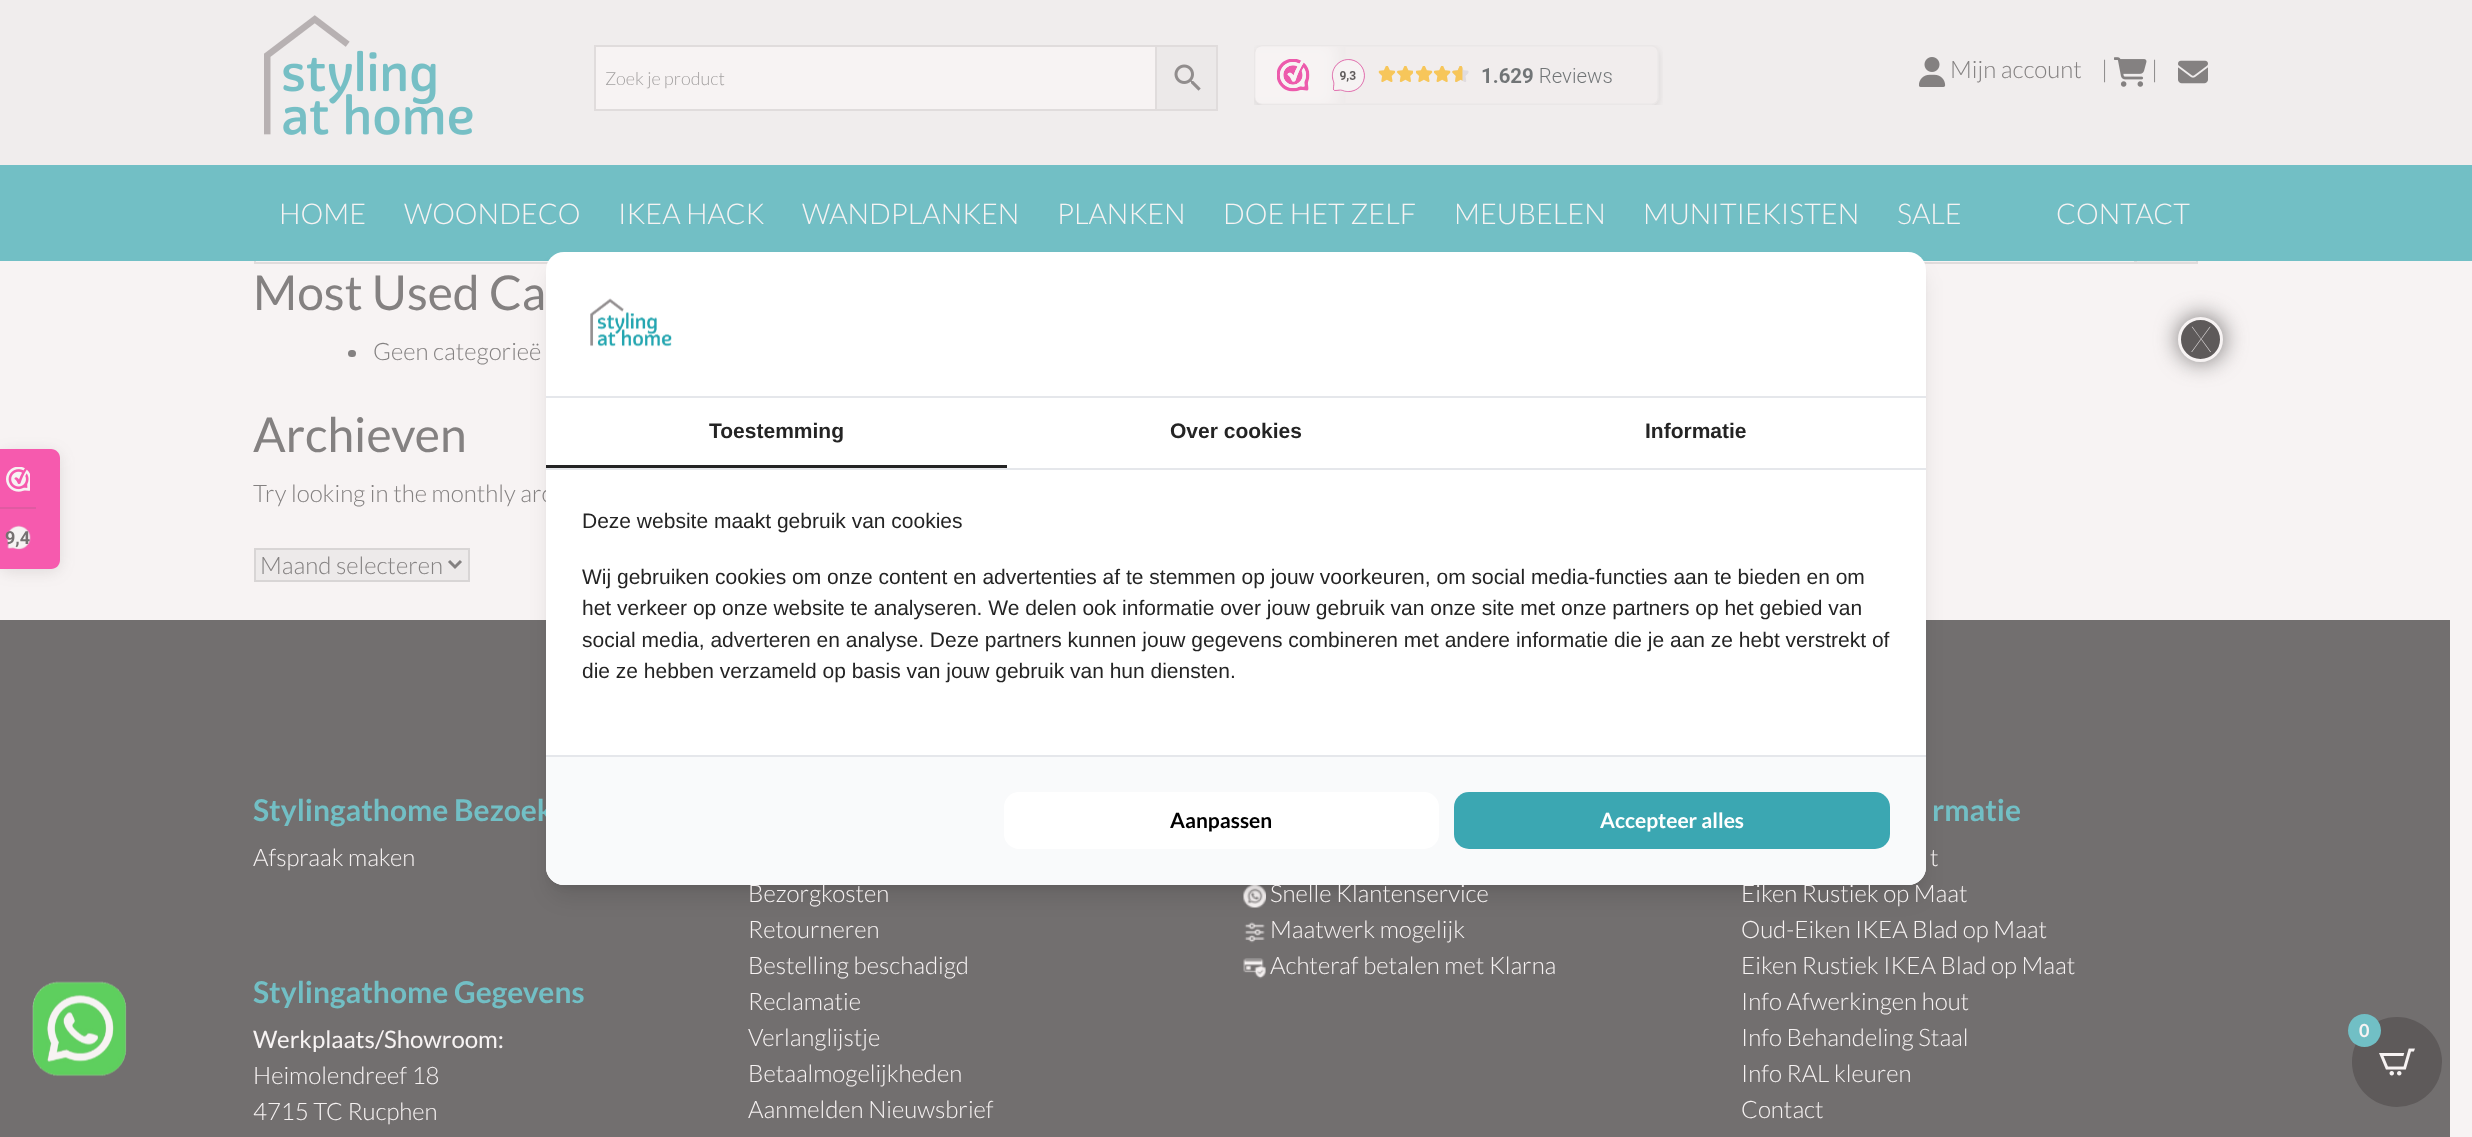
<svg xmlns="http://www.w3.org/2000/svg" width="2472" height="1137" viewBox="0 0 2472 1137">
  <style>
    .t1 { font: 300 18px Lato; fill: #a4a1a1; }
    .t2 { font: 300 24px Lato; fill: #848181; }
    .t3 { font: 300 28.5px Lato; fill: #f7f3f3; }
    .t4 { font: 48px Lato; fill: #848181; }
    .t5 { font: 100 36px Lato; fill: #f7f3f3; }
    .t6 { font: bold 18px Roboto; fill: #757171; }
    .t7 { font: bold 30px Lato; fill: #72bfc5; }
    .t8 { font: 300 24px Lato; fill: #f7f3f3; }
    .t9 { font: bold 21px Liberation Sans; fill: #242424; }
    .t10 { font: 21px Liberation Sans; fill: #242424; }
    .t11 { font: bold 21px Lato; fill: #000; }
    .t12 { font: bold 21px Lato; fill: #fff; }
    .t13 { font: 24px Lato; fill: #f7f3f3; }
    .t14 { font: bold 18px Lato; fill: #f7f3f3; }
  </style>
  <defs>
    <clipPath id="clip1"><rect x="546" y="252" width="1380" height="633" rx="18"/></clipPath>
  </defs>
  <rect width="100%" height="100%" fill="#f7f3f3"/>
  <rect x="0" y="0" width="2472" height="165" fill="#f0eded"/>
  <image x="264" y="15" width="209" height="120" href="images/1.png"/>
  <rect x="1156" y="46" width="61" height="64" fill="#ece9e9" stroke="#e0dcdc" stroke-width="2"/>
  <rect x="595" y="46" width="561" height="64" fill="#f7f3f3" stroke="#e0dcdc" stroke-width="2"/>
  <text x="605" y="85" class="t1">Zoek je product</text>
  <image x="1174" y="64" width="27" height="27" href="images/2.png"/>
  <image x="1254" y="45" width="409" height="60" href="images/3.png"/>
  <image x="1919" y="57" width="27" height="30" href="images/4.png"/>
  <text x="1950" y="78" class="t2">Mijn account</text>
  <text x="2101" y="78" class="t2">|</text>
  <image x="2114" y="57" width="33" height="30" href="images/5.png"/>
  <text x="2151" y="78" class="t2">|</text>
  <image x="2178" y="60" width="30" height="24" href="images/6.png"/>
  <rect x="2137" y="261" width="59" height="1" fill="#ece9e9"/>
  <rect x="2136" y="199" width="61" height="64" fill="none" stroke="#e0dcdc" stroke-width="2"/>
  <rect x="255" y="199" width="1880" height="64" fill="none" stroke="#e0dcdc" stroke-width="2"/>
  <rect x="0" y="165" width="2472" height="96" fill="#72bfc5"/>
  <text x="279" y="224" class="t3">HOME</text>
  <text x="404" y="224" class="t3">WOONDECO</text>
  <text x="618" y="224" class="t3">IKEA HACK</text>
  <text x="802" y="224" class="t3">WANDPLANKEN</text>
  <text x="1057" y="224" class="t3">PLANKEN</text>
  <text x="1223" y="224" class="t3">DOE HET ZELF</text>
  <text x="1454" y="224" class="t3">MEUBELEN</text>
  <text x="1643" y="224" class="t3">MUNITIEKISTEN</text>
  <text x="1897" y="224" class="t3">SALE</text>
  <text x="2056" y="224" class="t3">CONTACT</text>
  <rect x="0" y="620" width="2450" height="517" fill="#726f6f"/>
  <image x="32" y="981" width="95" height="96" href="images/7.png"/>
  <text x="253" y="310" class="t4">Most Used Ca</text>
  <rect x="348" y="350" width="8" height="7" rx="3.5" fill="#848181"/>
  <text x="373" y="360" class="t2">Geen categorieë</text>
  <text x="253" y="452" class="t4">Archieven</text>
  <text x="253" y="502" class="t2">Try looking in the monthly arc</text>
  <rect x="255" y="549" width="214" height="32" fill="#edeaea" stroke="#d8d5d5" stroke-width="2"/>
  <path d="M449 561L455 567L461 561" fill="none" stroke="#848181" stroke-width="3"/>
  <text x="260" y="574" class="t2">Maand selecteren</text>
  <rect x="2177" y="315" width="48" height="48" rx="24" fill="#5f5c5cbf" filter="blur(11px)"/>
  <circle cx="2200.5" cy="339.5" r="21" fill="#5e5a5a" stroke="#f7f3f3" stroke-width="3"/>
  <text x="2191" y="352" class="t5">X</text>
  <rect x="0" y="452" width="60" height="120" rx="9" fill="#5e5a5a26" filter="blur(7.5px)"/>
  <path d="M0 449H51C56 449 60 453 60 458V560C60 565 56 569 51 569H0Z" fill="#f65aae"/>
  <image x="6" y="467" width="24" height="25" href="images/8.png"/>
  <rect x="0" y="507" width="36" height="2" fill="#e05aa2"/>
  <image x="6" y="525" width="25" height="25" href="images/9.png"/>
  <text x="5" y="544" class="t6">9,4</text>
  <image x="1243" y="885" width="23" height="23" href="images/11.png"/>
  <rect x="552" y="264" width="1368" height="621" rx="12" fill="#0000001a" filter="blur(4.5px)"/>
  <image x="1244" y="922" width="21" height="21" href="images/12.png"/>
  <rect x="551" y="272" width="1371" height="624" rx="14" fill="#0000001a" filter="blur(11px)"/>
  <text x="253" y="821" class="t7">Stylingathome Bezoek</text>
  <text x="748" y="902" class="t8">Bezorgkosten</text>
  <text x="1270" y="902" class="t8">Snelle Klantenservice</text>
  <text x="1741" y="902" class="t8">Eiken Rustiek op Maat</text>
  <rect x="546" y="252" width="1380" height="633" rx="18" fill="#fff"/>
  <rect x="546" y="396" width="1380" height="2" fill="#e5e7eb"/>
  <image x="590" y="298" width="82" height="49" href="images/10.png"/>
  <rect x="546" y="468" width="1380" height="2" fill="#e5e7eb"/>
  <rect x="546" y="465" width="461" height="3" fill="#242424"/>
  <text x="709" y="438" class="t9">Toestemming</text>
  <text x="1170" y="438" class="t9">Over cookies</text>
  <text x="1645" y="438" class="t9">Informatie</text>
  <text x="582" y="528" class="t10">Deze website maakt gebruik van cookies</text>
  <text x="582" y="584" class="t10">Wij gebruiken cookies om onze content en advertenties af te stemmen op jouw voorkeuren, om social media-functies aan te bieden en om</text>
  <text x="582" y="615" class="t10">het verkeer op onze website te analyseren. We delen ook informatie over jouw gebruik van onze site met onze partners op het gebied van</text>
  <text x="582" y="647" class="t10">social media, adverteren en analyse. Deze partners kunnen jouw gegevens combineren met andere informatie die je aan ze hebt verstrekt of</text>
  <text x="582" y="678" class="t10">die ze hebben verzameld op basis van jouw gebruik van hun diensten.</text>
  <g clip-path="url(#clip1)">
    <rect x="534" y="713" width="1404" height="154" fill="#fff" filter="blur(15px)"/>
  </g>
  <path d="M546 755H1926V867C1926 877 1918 885 1908 885H564C554 885 546 877 546 867Z" fill="#f9fafb"/>
  <rect x="546" y="755" width="1380" height="2" fill="#e5e7eb"/>
  <rect x="1004" y="792" width="435" height="57" rx="15" fill="#fff"/>
  <text x="1170" y="828" class="t11">Aanpassen</text>
  <rect x="1454" y="792" width="436" height="57" rx="15" fill="#3ba7b2"/>
  <text x="1600" y="828" class="t12">Accepteer alles</text>
  <text x="253" y="866" class="t8">Afspraak maken</text>
  <text x="253" y="1003" class="t7">Stylingathome Gegevens</text>
  <text x="253" y="1048" class="t13">Werkplaats/Showroom:</text>
  <text x="253" y="1084" class="t8">Heimolendreef 18</text>
  <text x="253" y="1120" class="t8">4715 TC Rucphen</text>
  <text x="748" y="938" class="t8">Retourneren</text>
  <text x="748" y="974" class="t8">Bestelling beschadigd</text>
  <text x="748" y="1010" class="t8">Reclamatie</text>
  <text x="748" y="1046" class="t8">Verlanglijstje</text>
  <text x="748" y="1082" class="t8">Betaalmogelijkheden</text>
  <text x="748" y="1118" class="t8">Aanmelden Nieuwsbrief</text>
  <text x="1270" y="938" class="t8">Maatwerk mogelijk</text>
  <image x="1243" y="958" width="23" height="21" href="images/13.png"/>
  <text x="1270" y="974" class="t8">Achteraf betalen met Klarna</text>
  <text x="1932" y="821" class="t7">rmatie</text>
  <text x="1930" y="866" class="t8">t</text>
  <text x="1741" y="938" class="t8">Oud-Eiken IKEA Blad op Maat</text>
  <text x="1741" y="974" class="t8">Eiken Rustiek IKEA Blad op Maat</text>
  <text x="1741" y="1010" class="t8">Info Afwerkingen hout</text>
  <text x="1741" y="1046" class="t8">Info Behandeling Staal</text>
  <text x="1741" y="1082" class="t8">Info RAL kleuren</text>
  <text x="1741" y="1118" class="t8">Contact</text>
  <circle cx="2397" cy="1062" r="45" fill="#5e5a5a"/>
  <circle cx="2364.5" cy="1030.5" r="16.5" fill="#71bfc5"/>
  <text x="2359" y="1037" class="t14">0</text>
  <image x="2379" y="1048" width="36" height="28" href="images/14.png"/>
</svg>
